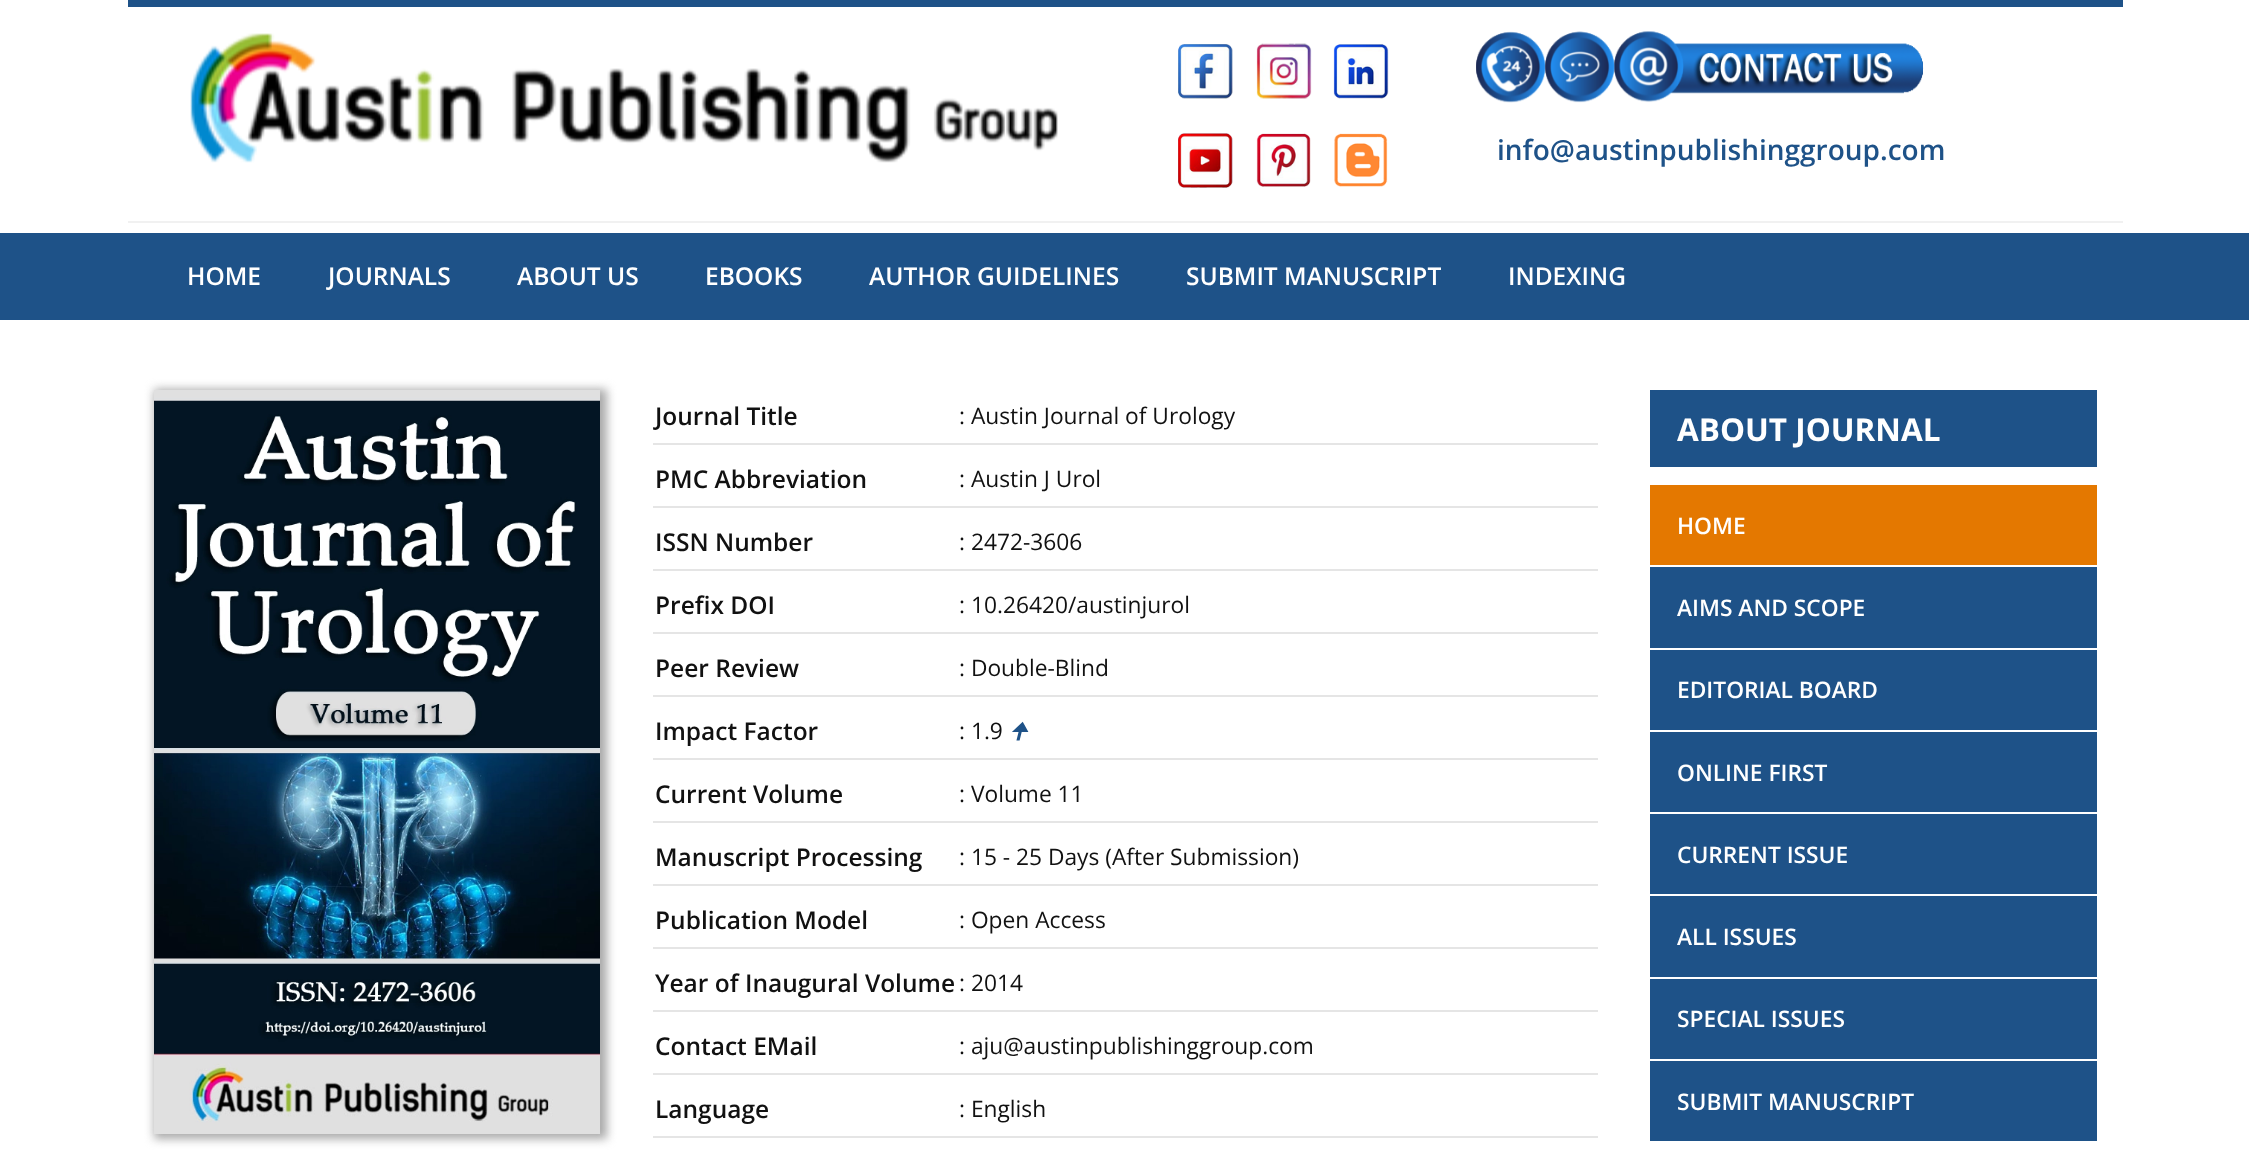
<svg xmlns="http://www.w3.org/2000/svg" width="2249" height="1173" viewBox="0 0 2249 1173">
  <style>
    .t1 { font: 600 28px Open Sans; fill: #1e5288; }
    .t2 { font: 600 24.5px Open Sans; fill: #fff; }
    .t3 { font: 600 24.5px Open Sans; fill: #111; }
    .t4 { font: 22.75px Open Sans; fill: #111; }
    .t5 { font: italic 22.75px 'Noto Sans Symbols 2'; fill: #1e5288; }
    .t6 { font: bold 31.5px Open Sans; fill: #fff; }
    .t7 { font: 600 22.75px Open Sans; fill: #fff; }
  </style>
  <rect width="100%" height="100%" fill="#fff"/>
  <rect x="128" y="0" width="1995" height="7" fill="#1e5288"/>
  <rect x="128" y="221" width="1995" height="2" fill="#f1f1f1"/>
  <image x="190" y="33" width="868" height="130" href="images/1.png"/>
  <image x="1178" y="44" width="55" height="55" href="images/2.png"/>
  <image x="1256" y="43" width="56" height="56" href="images/3.png"/>
  <image x="1333" y="44" width="56" height="55" href="images/4.png"/>
  <image x="1178" y="133" width="55" height="55" href="images/5.png"/>
  <image x="1256" y="133" width="55" height="54" href="images/6.png"/>
  <image x="1334" y="133" width="54" height="54" href="images/7.png"/>
  <image x="1476" y="31" width="448" height="72" href="images/8.png"/>
  <text x="1497" y="160" class="t1">info@austinpublishinggroup.com</text>
  <rect x="0" y="233" width="2249" height="87" fill="#1e5288"/>
  <text x="187" y="285" class="t2">HOME</text>
  <text x="328" y="285" class="t2">JOURNALS</text>
  <text x="517" y="285" class="t2">ABOUT US</text>
  <text x="705" y="285" class="t2">EBOOKS</text>
  <text x="869" y="285" class="t2">AUTHOR GUIDELINES</text>
  <text x="1186" y="285" class="t2">SUBMIT MANUSCRIPT</text>
  <text x="1508" y="285" class="t2">INDEXING</text>
  <rect x="154" y="389" width="453" height="750" fill="#aaa" filter="blur(5px)"/>
  <image x="154" y="390" width="446" height="744" href="images/9.png"/>
  <text x="655" y="425" class="t3">Journal Title</text>
  <text x="959" y="424" class="t4">: Austin Journal of Urology</text>
  <rect x="653" y="443" width="945" height="2" fill="#e5e5e5"/>
  <text x="655" y="488" class="t3">PMC Abbreviation</text>
  <text x="959" y="487" class="t4">: Austin J Urol</text>
  <rect x="653" y="506" width="945" height="2" fill="#e5e5e5"/>
  <text x="655" y="551" class="t3">ISSN Number</text>
  <text x="959" y="550" class="t4">: 2472-3606</text>
  <rect x="653" y="569" width="945" height="2" fill="#e5e5e5"/>
  <text x="655" y="614" class="t3">Prefix DOI</text>
  <text x="959" y="613" class="t4">: 10.26420/austinjurol</text>
  <rect x="653" y="632" width="945" height="2" fill="#e5e5e5"/>
  <text x="655" y="677" class="t3">Peer Review</text>
  <text x="959" y="676" class="t4">: Double-Blind</text>
  <rect x="653" y="695" width="945" height="2" fill="#e5e5e5"/>
  <text x="655" y="740" class="t3">Impact Factor</text>
  <text x="959" y="739" class="t4">: 1.9</text>
  <text x="1009" y="739" class="t5">🠉</text>
  <rect x="653" y="758" width="945" height="2" fill="#e5e5e5"/>
  <text x="655" y="803" class="t3">Current Volume</text>
  <text x="959" y="802" class="t4">: Volume 11</text>
  <rect x="653" y="821" width="945" height="2" fill="#e5e5e5"/>
  <text x="655" y="866" class="t3">Manuscript Processing</text>
  <text x="959" y="865" class="t4">: 15 - 25 Days (After Submission)</text>
  <rect x="653" y="884" width="945" height="2" fill="#e5e5e5"/>
  <text x="655" y="929" class="t3">Publication Model</text>
  <text x="959" y="928" class="t4">: Open Access</text>
  <rect x="653" y="947" width="945" height="2" fill="#e5e5e5"/>
  <text x="655" y="992" class="t3">Year of Inaugural Volume</text>
  <text x="959" y="991" class="t4">: 2014</text>
  <rect x="653" y="1010" width="945" height="2" fill="#e5e5e5"/>
  <text x="655" y="1055" class="t3">Contact EMail</text>
  <text x="959" y="1054" class="t4">: aju@austinpublishinggroup.com</text>
  <rect x="653" y="1073" width="945" height="2" fill="#e5e5e5"/>
  <text x="655" y="1118" class="t3">Language</text>
  <text x="959" y="1117" class="t4">: English</text>
  <rect x="653" y="1136" width="945" height="2" fill="#e5e5e5"/>
  <rect x="1650" y="390" width="447" height="77" fill="#1e5288"/>
  <text x="1677" y="441" class="t6">ABOUT JOURNAL</text>
  <rect x="1650" y="567" width="447" height="574" fill="#1e5288"/>
  <rect x="1650" y="485" width="447" height="80" fill="#e47800"/>
  <text x="1677" y="534" class="t7">HOME</text>
  <rect x="1650" y="648" width="447" height="2" fill="#fff"/>
  <text x="1677" y="616" class="t7">AIMS AND SCOPE</text>
  <rect x="1650" y="730" width="447" height="2" fill="#fff"/>
  <text x="1677" y="698" class="t7">EDITORIAL BOARD</text>
  <rect x="1650" y="812" width="447" height="2" fill="#fff"/>
  <text x="1677" y="781" class="t7">ONLINE FIRST</text>
  <rect x="1650" y="894" width="447" height="2" fill="#fff"/>
  <text x="1677" y="863" class="t7">CURRENT ISSUE</text>
  <rect x="1650" y="977" width="447" height="2" fill="#fff"/>
  <text x="1677" y="945" class="t7">ALL ISSUES</text>
  <rect x="1650" y="1059" width="447" height="2" fill="#fff"/>
  <text x="1677" y="1027" class="t7">SPECIAL ISSUES</text>
  <text x="1677" y="1110" class="t7">SUBMIT MANUSCRIPT</text>
</svg>
